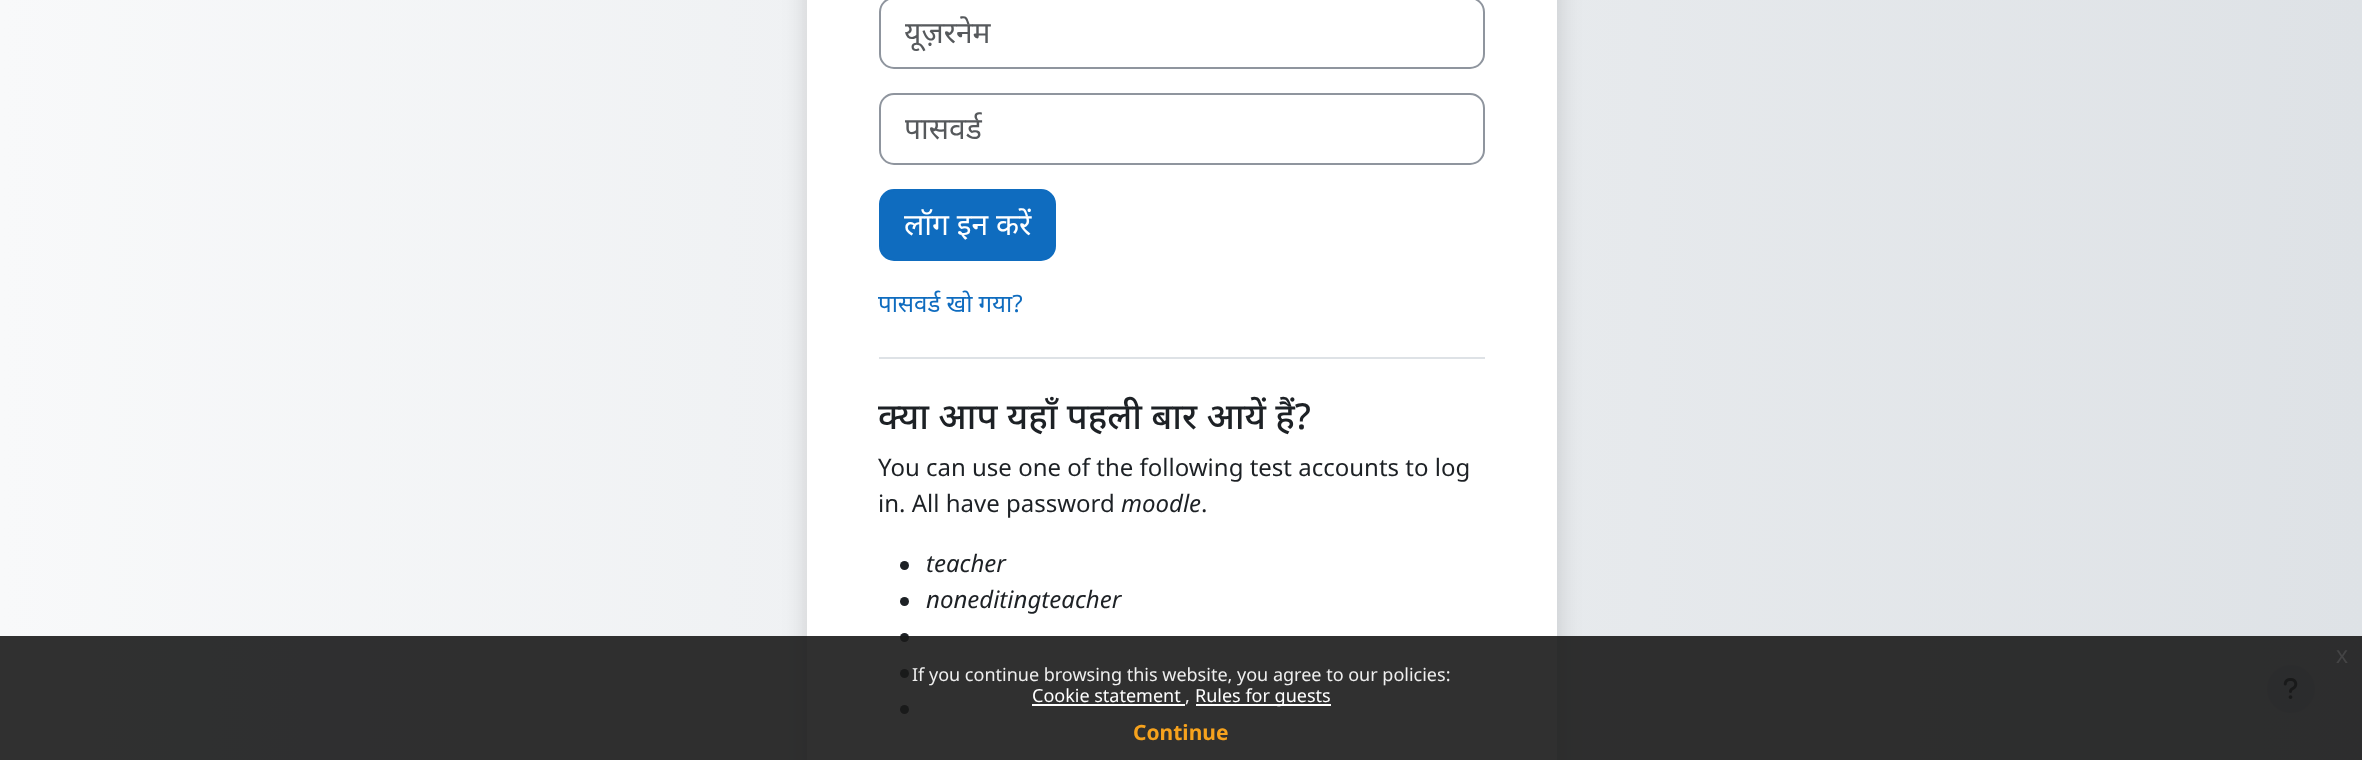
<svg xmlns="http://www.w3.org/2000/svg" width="2362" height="760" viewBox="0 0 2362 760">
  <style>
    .t1 { font: 30px Noto Sans; fill: #56595c; }
    .t2 { font: 30px Noto Sans; fill: #fff; }
    .t3 { font: 24px Noto Sans; fill: #0f6cbf; }
    .t4 { font: 500 36px Noto Sans; fill: #1d2125; }
    .t5 { font: 24px Noto Sans; fill: #1d2125; }
    .t6 { font: italic 24px Noto Sans; fill: #1d2125; }
    .t7 { font: 24px Liberation Sans; fill: #444445; }
    .t8 { font: 18px Noto Sans; fill: #efefef; }
    .t9 { font: 18px Noto Sans; fill: #fff; }
    .t10 { font: bold 21px Noto Sans; fill: #f6a21d; }
  </style>
  <defs>
    <linearGradient id="g1" gradientUnits="userSpaceOnUse" x1="0" y1="444" x2="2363" y2="444"><stop offset="0" stop-color="#f8f9fa"/><stop offset="1" stop-color="#dee2e6"/></linearGradient>
    <clipPath id="clip1"><rect x="905" y="12" width="555" height="41"/></clipPath>
    <clipPath id="clip2"><rect x="905" y="108" width="555" height="41"/></clipPath>
  </defs>
  <rect width="100%" height="100%" fill="#fff"/>
  <rect x="0" y="0" width="2362" height="760" fill="url(#g1)"/>
  <rect x="807" y="-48" width="750" height="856" rx="12" fill="#00000026" filter="blur(12px)"/>
  <rect x="807" y="0" width="750" height="760" fill="#fff"/>
  <rect x="880" y="-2" width="604" height="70" rx="14" fill="none" stroke="#8f959e" stroke-width="2"/>
  <g clip-path="url(#clip1)">
    <text x="904" y="43" class="t1">यूज़रनेम</text>
  </g>
  <rect x="880" y="94" width="604" height="70" rx="14" fill="none" stroke="#8f959e" stroke-width="2"/>
  <g clip-path="url(#clip2)">
    <text x="904" y="139" class="t1">पासवर्ड</text>
  </g>
  <rect x="880" y="190" width="175" height="70" rx="14" fill="#0f6cbf" stroke="#0f6cbf" stroke-width="2"/>
  <text x="904" y="235" class="t2">लॉग इन करें</text>
  <text x="878" y="312" class="t3">पासवर्ड खो गया?</text>
  <rect x="879" y="357" width="606" height="2" fill="#dee2e6"/>
  <text x="878" y="429" class="t4">क्या आप यहाँ पहली बार आयें हैं?</text>
  <text x="878" y="476" class="t5">You can use one of the following test accounts to log</text>
  <text x="878" y="512" class="t5">in. All have password</text>
  <text x="1121" y="512" class="t6">moodle</text>
  <text x="1201" y="512" class="t5">.</text>
  <circle cx="904.5" cy="565.5" r="4.5" fill="#1d2125"/>
  <text x="926" y="572" class="t6">teacher</text>
  <circle cx="904.5" cy="601.5" r="4.5" fill="#1d2125"/>
  <text x="926" y="608" class="t6">noneditingteacher</text>
  <circle cx="904.5" cy="637.5" r="4.5" fill="#1d2125"/>
  <circle cx="904.5" cy="673.5" r="4.5" fill="#1d2125"/>
  <circle cx="904.5" cy="709.5" r="4.5" fill="#1d2125"/>
  <circle cx="2291" cy="689" r="24" fill="#ced4da"/>
  <image x="2283" y="678" width="15" height="21" href="images/1.png"/>
  <rect x="0" y="636" width="2362" height="124" fill="#191919e6"/>
  <text x="2336" y="663" class="t7">x</text>
  <text x="912" y="681" class="t8">If you continue browsing this website, you agree to our policies:</text>
  <text x="1032" y="702" class="t9">Cookie statement</text>
  <rect x="1032" y="704" width="153" height="2" fill="#fff"/>
  <text x="1185" y="702" class="t8">,</text>
  <rect x="1196" y="704" width="135" height="2" fill="#fff"/>
  <text x="1195" y="702" class="t9">Rules for guests</text>
  <text x="1133" y="740" class="t10">Continue</text>
</svg>
